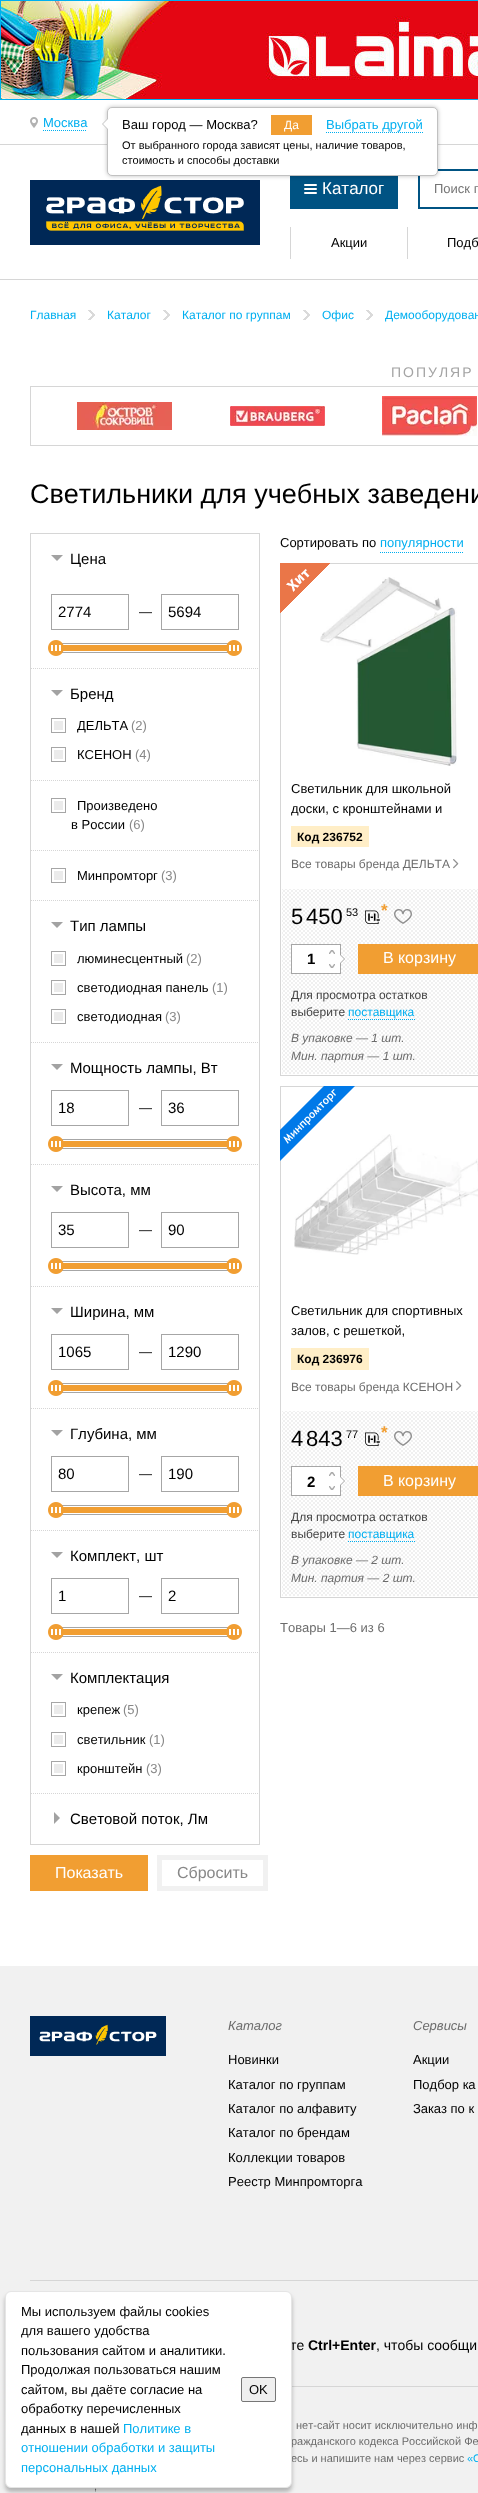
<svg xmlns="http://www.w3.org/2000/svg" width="478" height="2493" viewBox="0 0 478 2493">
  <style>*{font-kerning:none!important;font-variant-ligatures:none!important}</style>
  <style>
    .t1 { font: 13px Liberation Sans; fill: #00aff0; }
    .t2 { font: 13px Liberation Sans; fill: #000; }
    .t3 { font: 12px Liberation Sans; fill: #fff; }
    .t4 { font: 11px Liberation Sans; fill: #000; }
    .t5 { font: 17px Liberation Sans; fill: #fff; }
    .t6 { font: 13px Liberation Sans; fill: #757575; }
    .t7 { font: 12px Liberation Sans; fill: #00aff0; }
    .t8 { font: 14px Liberation Sans; letter-spacing: 2px; fill: #a4a4a4; }
    .t9 { font: 27px Liberation Sans; fill: #000; }
    .t10 { font: 15px Liberation Sans; fill: #000; }
    .t11 { font: 13px Liberation Sans; fill: #888; }
    .t12 { font: 16px Liberation Sans; fill: #fff; }
    .t13 { font: 16px Liberation Sans; fill: #888; }
    .t14 { font: bold 12px Liberation Sans; fill: #000; }
    .t15 { font: 12px Liberation Sans; fill: #6c6c6c; }
    .t16 { font: 22px Liberation Sans; fill: #000; }
    .t17 { font: 22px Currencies; fill: #000; }
    .t18 { font: bold 17px Liberation Sans; fill: #f19e32; }
    .t19 { font: bold 15px Liberation Sans; fill: #000; }
    .t20 { font: 12px Liberation Sans; fill: #444; }
    .t21 { font: italic 12px Liberation Sans; fill: #6c6c6c; }
    .t22 { font: 13px Liberation Sans; fill: #6c6c6c; }
    .t23 { font: italic 13px Liberation Sans; fill: #6c6c6c; }
    .t24 { font: 14px Liberation Sans; fill: #000; }
    .t25 { font: bold 14px Liberation Sans; fill: #000; }
    .t26 { font: 11px Liberation Sans; fill: #6c6c6c; }
    .t27 { font: 11px Liberation Sans; fill: #00aff0; }
  </style>
  <rect width="100%" height="100%" fill="#fff"/>
  <image x="1" y="1" width="477" height="98" href="images/1.png"/>
  <rect x="0.5" y="0.5" width="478" height="99" fill="none" stroke="#00aff0"/>
  <rect x="0" y="144" width="478" height="1" fill="#d6d6d6"/>
  <image x="30" y="117" width="8" height="11" href="images/2.png"/>
  <text x="43" y="127" class="t1">Москва</text>
  <path d="M43 130.5H87" fill="none" stroke="#00aff0" stroke-dasharray="1 1"/>
  <image x="30" y="180" width="230" height="65" href="images/3.png"/>
  <rect x="290" y="176" width="108" height="33" fill="#005383"/>
  <rect x="419" y="170" width="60" height="38" fill="none" stroke="#005383" stroke-width="2"/>
  <rect x="107" y="107" width="331" height="69" rx="5" fill="#00000040" filter="blur(2px)"/>
  <rect x="107.5" y="107.5" width="330" height="68" rx="4.5" fill="#fff" stroke="#c1c1c1"/>
  <path d="M108 118V130L102 124Z" fill="#c1c1c1"/>
  <path d="M109 118V130L103 124Z" fill="#fff"/>
  <text x="122" y="129" class="t2">Ваш город — Москва?</text>
  <rect x="271" y="115" width="41" height="20" fill="#f19e32"/>
  <text x="284" y="129" class="t3">Да</text>
  <text x="326" y="129" class="t1">Выбрать другой</text>
  <path d="M326 132.5H423" fill="none" stroke="#00aff0" stroke-dasharray="1 1"/>
  <text x="122" y="149" class="t4">От выбранного города зависят цены, наличие товаров,</text>
  <text x="122" y="164" class="t4">стоимость и способы доставки</text>
  <rect x="0" y="279" width="478" height="1" fill="#d6d6d6"/>
  <rect x="304" y="188" width="13" height="2" rx="1" fill="#fff"/>
  <rect x="304" y="184" width="13" height="2" rx="1" fill="#fff"/>
  <rect x="304" y="192" width="13" height="2" rx="1" fill="#fff"/>
  <text x="322" y="194" class="t5">Каталог</text>
  <text x="434" y="193" class="t6">Поиск п</text>
  <rect x="407" y="227" width="1" height="32" fill="#d6d6d6"/>
  <rect x="290" y="227" width="1" height="32" fill="#d6d6d6"/>
  <text x="331" y="247" class="t2">Акции</text>
  <text x="447" y="247" class="t2">Подб</text>
  <text x="30" y="319" class="t7">Главная</text>
  <image x="88" y="310" width="7" height="10" href="images/4.png"/>
  <text x="107" y="319" class="t7">Каталог</text>
  <image x="163" y="310" width="7" height="10" href="images/4.png"/>
  <text x="182" y="319" class="t7">Каталог по группам</text>
  <image x="303" y="310" width="7" height="10" href="images/4.png"/>
  <text x="322" y="319" class="t7">Офис</text>
  <image x="366" y="310" width="7" height="10" href="images/4.png"/>
  <text x="385" y="319" class="t7">Демооборудован</text>
  <text x="391" y="377" class="t8">ПОПУЛЯР</text>
  <rect x="30.5" y="386.5" width="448" height="59" fill="none" stroke="#d6d6d6"/>
  <image x="77" y="402" width="95" height="28" href="images/5.png"/>
  <image x="230" y="406" width="95" height="20" href="images/6.png"/>
  <image x="382" y="396" width="95" height="40" href="images/7.png"/>
  <text x="30" y="503" class="t9">Светильники для учебных заведени</text>
  <rect x="30.5" y="533.5" width="229" height="1311" fill="none" stroke="#d6d6d6"/>
  <path d="M51 555H63L57 561Z" fill="#a2a2a2"/>
  <text x="70" y="564" class="t10">Цена</text>
  <rect x="51.5" y="594.5" width="77" height="35" fill="none" stroke="#a6a6a6"/>
  <text x="58" y="617" class="t10">2774</text>
  <text x="139" y="616" class="t2">—</text>
  <rect x="161.5" y="594.5" width="77" height="35" fill="none" stroke="#a6a6a6"/>
  <text x="168" y="617" class="t10">5694</text>
  <rect x="51.5" y="643.5" width="187" height="9" fill="none" stroke="#a6a6a6"/>
  <rect x="63" y="645" width="164" height="6" fill="#f19e32"/>
  <image x="48" y="640" width="16" height="16" href="images/8.png"/>
  <image x="226" y="640" width="16" height="16" href="images/9.png"/>
  <path d="M31 668.5H259" fill="none" stroke="#d6d6d6" stroke-dasharray="1 1"/>
  <path d="M51 690H63L57 696Z" fill="#a2a2a2"/>
  <text x="70" y="699" class="t10">Бренд</text>
  <rect x="54" y="721" width="9" height="9" fill="#ebebeb"/>
  <rect x="51.5" y="718.5" width="14" height="14" fill="none" stroke="#a6a6a6"/>
  <text x="77" y="730" class="t2">ДЕЛЬТА</text>
  <text x="131" y="730" class="t11">(2)</text>
  <rect x="54" y="750" width="9" height="9" fill="#ebebeb"/>
  <rect x="51.5" y="747.5" width="14" height="14" fill="none" stroke="#a6a6a6"/>
  <text x="77" y="759" class="t2">КСЕНОН</text>
  <text x="135" y="759" class="t11">(4)</text>
  <path d="M31 780.5H259" fill="none" stroke="#d6d6d6" stroke-dasharray="1 1"/>
  <rect x="54" y="801" width="9" height="9" fill="#ebebeb"/>
  <rect x="51.5" y="798.5" width="14" height="14" fill="none" stroke="#a6a6a6"/>
  <text x="77" y="810" class="t2">Произведено</text>
  <text x="71" y="829" class="t2">в России</text>
  <text x="129" y="829" class="t11">(6)</text>
  <path d="M31 850.5H259" fill="none" stroke="#d6d6d6" stroke-dasharray="1 1"/>
  <rect x="54" y="871" width="9" height="9" fill="#ebebeb"/>
  <rect x="51.5" y="868.5" width="14" height="14" fill="none" stroke="#a6a6a6"/>
  <text x="77" y="880" class="t2">Минпромторг</text>
  <text x="161" y="880" class="t11">(3)</text>
  <path d="M31 900.5H259" fill="none" stroke="#d6d6d6" stroke-dasharray="1 1"/>
  <path d="M51 922H63L57 928Z" fill="#a2a2a2"/>
  <text x="70" y="931" class="t10">Тип лампы</text>
  <rect x="54" y="954" width="9" height="9" fill="#ebebeb"/>
  <rect x="51.5" y="951.5" width="14" height="14" fill="none" stroke="#a6a6a6"/>
  <text x="77" y="963" class="t2">люминесцентный</text>
  <text x="186" y="963" class="t11">(2)</text>
  <rect x="54" y="983" width="9" height="9" fill="#ebebeb"/>
  <rect x="51.5" y="980.5" width="14" height="14" fill="none" stroke="#a6a6a6"/>
  <text x="77" y="992" class="t2">светодиодная панель</text>
  <text x="212" y="992" class="t11">(1)</text>
  <rect x="54" y="1012" width="9" height="9" fill="#ebebeb"/>
  <rect x="51.5" y="1009.5" width="14" height="14" fill="none" stroke="#a6a6a6"/>
  <text x="77" y="1021" class="t2">светодиодная</text>
  <text x="165" y="1021" class="t11">(3)</text>
  <path d="M31 1042.5H259" fill="none" stroke="#d6d6d6" stroke-dasharray="1 1"/>
  <path d="M51 1064H63L57 1070Z" fill="#a2a2a2"/>
  <text x="70" y="1073" class="t10">Мощность лампы, Вт</text>
  <rect x="51.5" y="1090.5" width="77" height="35" fill="none" stroke="#a6a6a6"/>
  <text x="58" y="1113" class="t10">18</text>
  <text x="139" y="1112" class="t2">—</text>
  <rect x="161.5" y="1090.5" width="77" height="35" fill="none" stroke="#a6a6a6"/>
  <text x="168" y="1113" class="t10">36</text>
  <rect x="51.5" y="1139.5" width="187" height="9" fill="none" stroke="#a6a6a6"/>
  <rect x="63" y="1141" width="164" height="6" fill="#f19e32"/>
  <image x="48" y="1136" width="16" height="16" href="images/8.png"/>
  <image x="226" y="1136" width="16" height="16" href="images/9.png"/>
  <path d="M31 1164.5H259" fill="none" stroke="#d6d6d6" stroke-dasharray="1 1"/>
  <path d="M51 1186H63L57 1192Z" fill="#a2a2a2"/>
  <text x="70" y="1195" class="t10">Высота, мм</text>
  <rect x="51.5" y="1212.5" width="77" height="35" fill="none" stroke="#a6a6a6"/>
  <text x="58" y="1235" class="t10">35</text>
  <text x="139" y="1234" class="t2">—</text>
  <rect x="161.5" y="1212.5" width="77" height="35" fill="none" stroke="#a6a6a6"/>
  <text x="168" y="1235" class="t10">90</text>
  <rect x="51.5" y="1261.5" width="187" height="9" fill="none" stroke="#a6a6a6"/>
  <rect x="63" y="1263" width="164" height="6" fill="#f19e32"/>
  <image x="48" y="1258" width="16" height="16" href="images/8.png"/>
  <image x="226" y="1258" width="16" height="16" href="images/9.png"/>
  <path d="M31 1286.5H259" fill="none" stroke="#d6d6d6" stroke-dasharray="1 1"/>
  <path d="M51 1308H63L57 1314Z" fill="#a2a2a2"/>
  <text x="70" y="1317" class="t10">Ширина, мм</text>
  <rect x="51.5" y="1334.5" width="77" height="35" fill="none" stroke="#a6a6a6"/>
  <text x="58" y="1357" class="t10">1065</text>
  <text x="139" y="1356" class="t2">—</text>
  <rect x="161.5" y="1334.5" width="77" height="35" fill="none" stroke="#a6a6a6"/>
  <text x="168" y="1357" class="t10">1290</text>
  <rect x="51.5" y="1383.5" width="187" height="9" fill="none" stroke="#a6a6a6"/>
  <rect x="63" y="1385" width="164" height="6" fill="#f19e32"/>
  <image x="48" y="1380" width="16" height="16" href="images/8.png"/>
  <image x="226" y="1380" width="16" height="16" href="images/9.png"/>
  <path d="M31 1408.5H259" fill="none" stroke="#d6d6d6" stroke-dasharray="1 1"/>
  <path d="M51 1430H63L57 1436Z" fill="#a2a2a2"/>
  <text x="70" y="1439" class="t10">Глубина, мм</text>
  <rect x="51.5" y="1456.5" width="77" height="35" fill="none" stroke="#a6a6a6"/>
  <text x="58" y="1479" class="t10">80</text>
  <text x="139" y="1478" class="t2">—</text>
  <rect x="161.5" y="1456.5" width="77" height="35" fill="none" stroke="#a6a6a6"/>
  <text x="168" y="1479" class="t10">190</text>
  <rect x="51.5" y="1505.5" width="187" height="9" fill="none" stroke="#a6a6a6"/>
  <rect x="63" y="1507" width="164" height="6" fill="#f19e32"/>
  <image x="48" y="1502" width="16" height="16" href="images/8.png"/>
  <image x="226" y="1502" width="16" height="16" href="images/9.png"/>
  <path d="M31 1530.5H259" fill="none" stroke="#d6d6d6" stroke-dasharray="1 1"/>
  <path d="M51 1552H63L57 1558Z" fill="#a2a2a2"/>
  <text x="70" y="1561" class="t10">Комплект, шт</text>
  <rect x="51.5" y="1578.5" width="77" height="35" fill="none" stroke="#a6a6a6"/>
  <text x="58" y="1601" class="t10">1</text>
  <text x="139" y="1600" class="t2">—</text>
  <rect x="161.5" y="1578.5" width="77" height="35" fill="none" stroke="#a6a6a6"/>
  <text x="168" y="1601" class="t10">2</text>
  <rect x="51.5" y="1627.5" width="187" height="9" fill="none" stroke="#a6a6a6"/>
  <rect x="63" y="1629" width="164" height="6" fill="#f19e32"/>
  <image x="48" y="1624" width="16" height="16" href="images/8.png"/>
  <image x="226" y="1624" width="16" height="16" href="images/9.png"/>
  <path d="M31 1652.5H259" fill="none" stroke="#d6d6d6" stroke-dasharray="1 1"/>
  <path d="M51 1674H63L57 1680Z" fill="#a2a2a2"/>
  <text x="70" y="1683" class="t10">Комплектация</text>
  <rect x="54" y="1705" width="9" height="9" fill="#ebebeb"/>
  <rect x="51.5" y="1702.5" width="14" height="14" fill="none" stroke="#a6a6a6"/>
  <text x="77" y="1714" class="t2">крепеж</text>
  <text x="123" y="1714" class="t11">(5)</text>
  <rect x="54" y="1735" width="9" height="9" fill="#ebebeb"/>
  <rect x="51.5" y="1732.5" width="14" height="14" fill="none" stroke="#a6a6a6"/>
  <text x="77" y="1744" class="t2">светильник</text>
  <text x="149" y="1744" class="t11">(1)</text>
  <rect x="54" y="1764" width="9" height="9" fill="#ebebeb"/>
  <rect x="51.5" y="1761.5" width="14" height="14" fill="none" stroke="#a6a6a6"/>
  <text x="77" y="1773" class="t2">кронштейн</text>
  <text x="146" y="1773" class="t11">(3)</text>
  <path d="M31 1793.5H259" fill="none" stroke="#d6d6d6" stroke-dasharray="1 1"/>
  <path d="M54 1824V1812L60 1818Z" fill="#a2a2a2"/>
  <text x="70" y="1824" class="t10">Световой поток, Лм</text>
  <rect x="30" y="1855" width="118" height="36" fill="#f19e32"/>
  <text x="55" y="1878" class="t12">Показать</text>
  <rect x="159.5" y="1857.5" width="106" height="31" fill="none" stroke="#f1f1f1" stroke-width="5"/>
  <text x="177" y="1878" class="t13">Сбросить</text>
  <text x="280" y="547" class="t2">Сортировать по</text>
  <path d="M380 552.5H464" fill="none" stroke="#00aff0" stroke-dasharray="1 1"/>
  <text x="380" y="547" class="t1">популярности</text>
  <rect x="280.5" y="563.5" width="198" height="512" fill="none" stroke="#d6d6d6"/>
  <image x="320" y="577" width="137" height="189" href="images/11.png"/>
  <image x="280" y="563" width="50" height="50" href="images/10.png"/>
  <text x="291" y="793" class="t2">Светильник для школьной</text>
  <text x="291" y="813" class="t2">доски, с кронштейнами и</text>
  <rect x="291" y="826" width="78" height="21" fill="#ffeec7"/>
  <text x="297" y="841" class="t14">Код 236752</text>
  <text x="291" y="868" class="t15">Все товары бренда ДЕЛЬТА</text>
  <image x="453" y="859" width="6" height="10" href="images/12.png"/>
  <image x="282" y="889" width="196" height="185" href="images/13.png"/>
  <text x="291" y="924" class="t16">5</text>
  <text x="306" y="924" class="t16">450</text>
  <text x="346" y="916" class="t4">53</text>
  <text x="364" y="924" class="t17">руб</text>
  <text x="381" y="916" class="t18">*</text>
  <image x="394" y="909" width="18" height="15" href="images/14.png"/>
  <rect x="291.5" y="944.5" width="49" height="29" fill="#fff" stroke="#a6a6a6"/>
  <text x="307" y="964" class="t19">1</text>
  <image x="329" y="950" width="6" height="4" href="images/15.png"/>
  <image x="329" y="964" width="6" height="4" href="images/16.png"/>
  <path d="M340 964V954L345 959Z" fill="#a6a6a6"/>
  <path d="M340 963V955L344 959Z" fill="#fff"/>
  <rect x="358" y="944" width="120" height="30" fill="#f19e32"/>
  <text x="383" y="963" class="t12">В корзину</text>
  <text x="291" y="999" class="t20">Для просмотра остатков</text>
  <text x="291" y="1016" class="t20">выберите</text>
  <text x="348" y="1016" class="t7">поставщика</text>
  <path d="M348 1019.5H415" fill="none" stroke="#00aff0" stroke-dasharray="1 1"/>
  <text x="291" y="1042" class="t21">В упаковке — 1 шт.</text>
  <text x="291" y="1060" class="t21">Мин. партия — 1 шт.</text>
  <rect x="280.5" y="1086.5" width="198" height="511" fill="none" stroke="#d6d6d6"/>
  <image x="294" y="1134" width="184" height="121" href="images/18.png"/>
  <image x="280" y="1086" width="75" height="75" href="images/17.png"/>
  <text x="291" y="1315" class="t2">Светильник для спортивных</text>
  <text x="291" y="1335" class="t2">залов, с решеткой,</text>
  <rect x="291" y="1348" width="78" height="22" fill="#ffeec7"/>
  <text x="297" y="1363" class="t14">Код 236976</text>
  <text x="291" y="1391" class="t15">Все товары бренда КСЕНОН</text>
  <image x="456" y="1381" width="6" height="10" href="images/12.png"/>
  <image x="282" y="1411" width="196" height="185" href="images/13.png"/>
  <text x="291" y="1446" class="t16">4</text>
  <text x="306" y="1446" class="t16">843</text>
  <text x="346" y="1438" class="t4">77</text>
  <text x="364" y="1446" class="t17">руб</text>
  <text x="381" y="1438" class="t18">*</text>
  <image x="394" y="1431" width="18" height="15" href="images/14.png"/>
  <rect x="291.5" y="1466.5" width="49" height="29" fill="#fff" stroke="#a6a6a6"/>
  <text x="307" y="1487" class="t19">2</text>
  <image x="329" y="1472" width="6" height="4" href="images/15.png"/>
  <image x="329" y="1486" width="6" height="4" href="images/16.png"/>
  <path d="M340 1486V1476L345 1481Z" fill="#a6a6a6"/>
  <path d="M340 1485V1477L344 1481Z" fill="#fff"/>
  <rect x="358" y="1466" width="120" height="30" fill="#f19e32"/>
  <text x="383" y="1486" class="t12">В корзину</text>
  <path d="M414 1476C416.5 1473.5 420.5 1473.5 423 1476" fill="none" stroke="#f19e32" stroke-width="4"/>
  <text x="291" y="1521" class="t20">Для просмотра остатков</text>
  <text x="291" y="1538" class="t20">выберите</text>
  <text x="348" y="1538" class="t7">поставщика</text>
  <path d="M348 1541.5H415" fill="none" stroke="#00aff0" stroke-dasharray="1 1"/>
  <text x="291" y="1564" class="t21">В упаковке — 2 шт.</text>
  <text x="291" y="1582" class="t21">Мин. партия — 2 шт.</text>
  <text x="280" y="1632" class="t22">Товары 1—6 из 6</text>
  <rect x="0" y="1966" width="478" height="527" fill="#f1f1f1"/>
  <image x="30" y="2016" width="136" height="40" href="images/19.png"/>
  <text x="228" y="2030" class="t23">Каталог</text>
  <text x="228" y="2064" class="t2">Новинки</text>
  <text x="228" y="2089" class="t2">Каталог по группам</text>
  <text x="228" y="2113" class="t2">Каталог по алфавиту</text>
  <text x="228" y="2137" class="t2">Каталог по брендам</text>
  <text x="228" y="2162" class="t2">Коллекции товаров</text>
  <text x="228" y="2186" class="t2">Реестр Минпромторга</text>
  <text x="413" y="2030" class="t23">Сервисы</text>
  <text x="413" y="2064" class="t2">Акции</text>
  <text x="413" y="2089" class="t2">Подбор ка</text>
  <text x="413" y="2113" class="t2">Заказ по к</text>
  <rect x="30" y="2280" width="448" height="1" fill="#d6d6d6"/>
  <text x="290" y="2350" class="t24">те</text>
  <text x="308" y="2350" class="t25">Ctrl+Enter</text>
  <text x="376" y="2350" class="t24">, чтобы сообщи</text>
  <rect x="292" y="2386" width="186" height="1" fill="#d6d6d6"/>
  <text x="296" y="2429" class="t26">нет-сайт носит исключительно инф</text>
  <text x="291" y="2445" class="t26">ражданского кодекса Российской Фе</text>
  <text x="291" y="2462" class="t26">есь и напишите нам через сервис</text>
  <text x="467" y="2462" class="t27">«О</text>
  <text x="94" y="2490" class="t26">,</text>
  <rect x="5" y="2295" width="287" height="197" rx="6" fill="#00000040" filter="blur(2px)"/>
  <rect x="5.5" y="2291.5" width="286" height="196" rx="5.5" fill="#fff" stroke="#e5e5e5"/>
  <text x="21" y="2316" class="t2">Мы используем файлы cookies</text>
  <text x="21" y="2335" class="t2">для вашего удобства</text>
  <text x="21" y="2355" class="t2">пользования сайтом и аналитики.</text>
  <text x="21" y="2374" class="t2">Продолжая пользоваться нашим</text>
  <text x="21" y="2394" class="t2">сайтом, вы даёте согласие на</text>
  <text x="21" y="2413" class="t2">обработку перечисленных</text>
  <text x="21" y="2433" class="t2">данных в нашей</text>
  <text x="123" y="2433" class="t1">Политике в</text>
  <text x="21" y="2452" class="t1">отношении обработки и защиты</text>
  <text x="21" y="2472" class="t1">персональных данных</text>
  <rect x="241.5" y="2377.5" width="34" height="24" rx="1.5" fill="#efefef" stroke="#767676"/>
  <text x="249" y="2394" class="t2">OK</text>
</svg>
